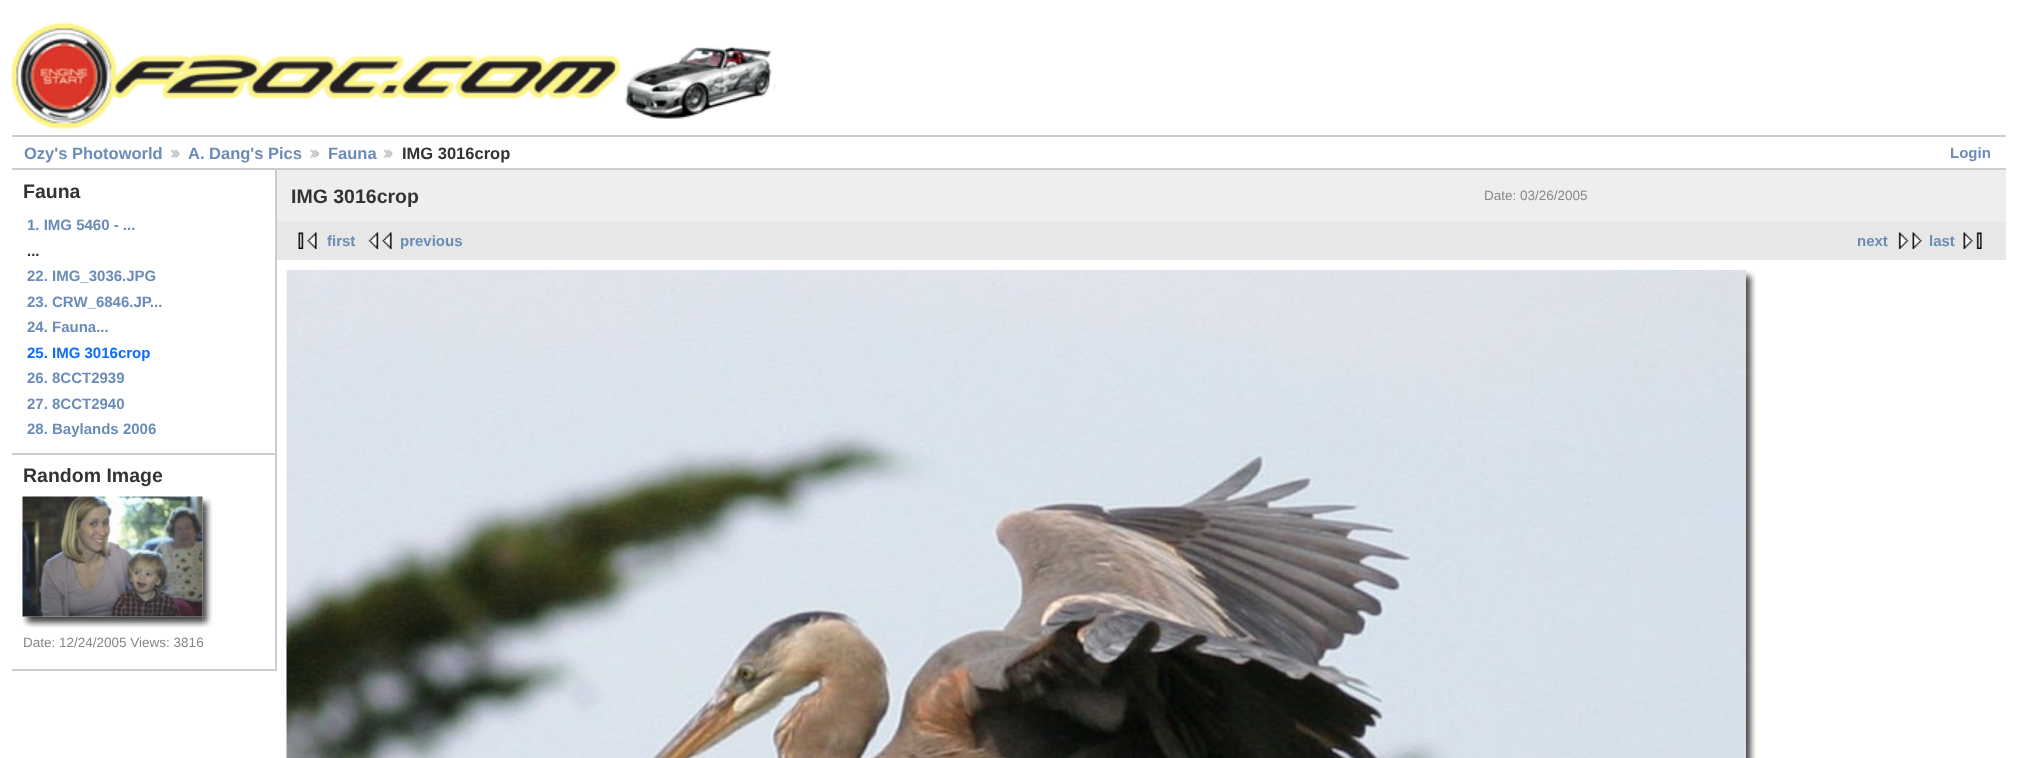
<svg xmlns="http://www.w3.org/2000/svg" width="2017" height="758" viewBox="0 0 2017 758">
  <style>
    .t1 { font: bold 16.5px Liberation Sans; fill: #6b8cb7; }
    .t2 { font: bold 16.5px Liberation Sans; fill: #333; }
    .t3 { font: bold 15px Liberation Sans; fill: #6b8cb7; }
    .t4 { font: bold 19.5px Liberation Sans; fill: #333; }
    .t5 { font: bold 15px Liberation Sans; fill: #333; }
    .t6 { font: bold 15px Liberation Sans; fill: #0b6cff; }
    .t7 { font: 13.5px Liberation Sans; fill: #888; }
  </style>
  <rect width="100%" height="100%" fill="#fff"/>
  <image x="12" y="22" width="608" height="108" href="images/1.png"/>
  <image x="625" y="46" width="151" height="73" href="images/2.png"/>
  <rect x="12" y="135" width="1994" height="2" fill="#ccc"/>
  <rect x="12" y="168" width="1994" height="2" fill="#ccc"/>
  <text x="24" y="159" class="t1">Ozy's Photoworld</text>
  <image x="170" y="149" width="11" height="9" href="images/3.png"/>
  <text x="188" y="159" class="t1">A. Dang's Pics</text>
  <image x="310" y="149" width="10" height="9" href="images/4.png"/>
  <text x="328" y="159" class="t1">Fauna</text>
  <image x="383" y="149" width="11" height="9" href="images/5.png"/>
  <text x="402" y="159" class="t2">IMG 3016crop</text>
  <text x="1950" y="158" class="t3">Login</text>
  <rect x="275" y="170" width="2" height="501" fill="#ccc"/>
  <rect x="12" y="453" width="263" height="2" fill="#ccc"/>
  <text x="23" y="198" class="t4">Fauna</text>
  <text x="27" y="230" class="t3">1. IMG 5460 - ...</text>
  <text x="27" y="256" class="t5">...</text>
  <text x="27" y="281" class="t3">22. IMG_3036.JPG</text>
  <text x="27" y="307" class="t3">23. CRW_6846.JP...</text>
  <text x="27" y="332" class="t3">24. Fauna...</text>
  <text x="27" y="358" class="t6">25. IMG 3016crop</text>
  <text x="27" y="383" class="t3">26. 8CCT2939</text>
  <text x="27" y="409" class="t3">27. 8CCT2940</text>
  <text x="27" y="434" class="t3">28. Baylands 2006</text>
  <rect x="12" y="669" width="263" height="2" fill="#ccc"/>
  <text x="23" y="482" class="t4">Random Image</text>
  <image x="202" y="497" width="11" height="15" href="images/7.png"/>
  <image x="202" y="511" width="11" height="106" href="images/8.png"/>
  <image x="22" y="616" width="14" height="11" href="images/9.png"/>
  <image x="36" y="616" width="167" height="11" href="images/10.png"/>
  <image x="202" y="616" width="11" height="11" href="images/11.png"/>
  <image x="22" y="496" width="181" height="121" href="images/6.png"/>
  <text x="23" y="647" class="t7">Date: 12/24/2005 Views: 3816</text>
  <rect x="277" y="170" width="1729" height="52" fill="#eee"/>
  <text x="291" y="203" class="t4">IMG 3016crop</text>
  <text x="1484" y="200" class="t7">Date: 03/26/2005</text>
  <rect x="277" y="222" width="1729" height="38" fill="#e7e7e7"/>
  <image x="298" y="232" width="19" height="17" href="images/12.png"/>
  <text x="327" y="246" class="t3">first</text>
  <image x="368" y="232" width="24" height="17" href="images/13.png"/>
  <text x="400" y="246" class="t3">previous</text>
  <text x="1857" y="246" class="t3">next</text>
  <image x="1898" y="232" width="24" height="17" href="images/14.png"/>
  <text x="1929" y="246" class="t3">last</text>
  <image x="1963" y="232" width="19" height="17" href="images/15.png"/>
  <image x="286" y="270" width="1460" height="488" href="images/16.png"/>
  <image x="1746" y="270" width="10" height="15" href="images/17.png"/>
  <image x="1746" y="285" width="10" height="473" href="images/18.png"/>
</svg>
